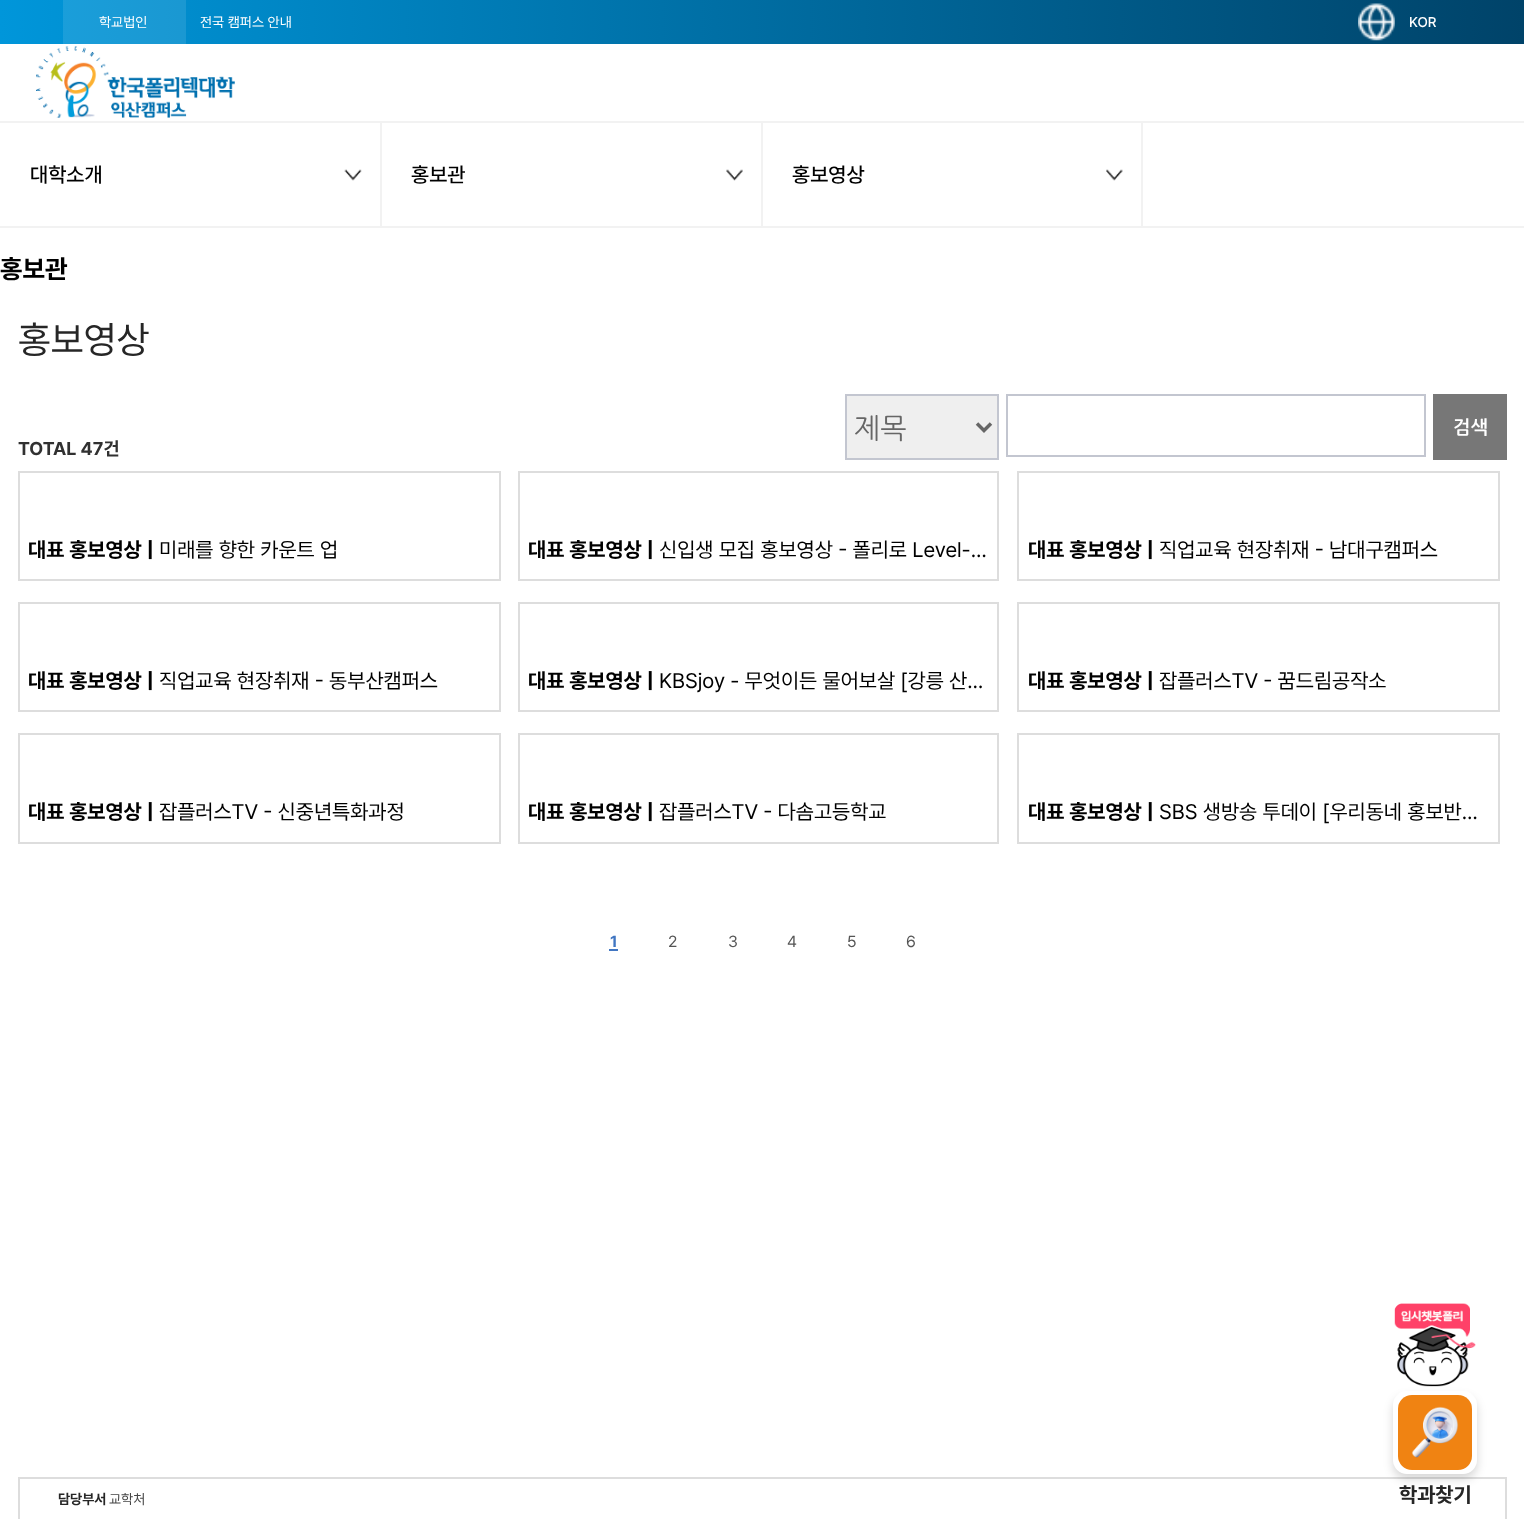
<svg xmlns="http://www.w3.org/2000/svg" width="1524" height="1519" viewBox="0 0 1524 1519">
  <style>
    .t1 { font: 14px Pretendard; fill: #fff; }
    .t2 { font: 500 14px Pretendard; fill: #fff; }
    .t3 { font: bold 21px Pretendard; fill: #262626; }
    .t4 { font: 500 21px Pretendard; fill: #000; }
    .t5 { font: bold 26px Pretendard; fill: #000; }
    .t6 { font: 38px Pretendard; fill: #262626; }
    .t7 { font: 28px NanumGothic; fill: #666; }
    .t8 { font: bold 18.5px NanumGothic; fill: #fff; }
    .t9 { font: bold 18.5px Pretendard; fill: #313131; }
    .t10 { font: bold 21px Pretendard; fill: #000; }
    .t11 { font: 21px Pretendard; fill: #000; }
    .t12 { font: bold 16px Pretendard; fill: #4176c2; }
    .t13 { font: 16px Pretendard; fill: #555; }
    .t14 { font: bold 14px Pretendard; fill: #262626; }
    .t15 { font: 14px Pretendard; fill: #464646; }
  </style>
  <defs>
    <linearGradient id="g1" gradientUnits="userSpaceOnUse" x1="0" y1="22" x2="1524" y2="22"><stop offset="0" stop-color="#0096da"/><stop offset="1" stop-color="#004369"/></linearGradient>
    <linearGradient id="g2" gradientUnits="userSpaceOnUse" x1="0" y1="22" x2="1524" y2="22"><stop offset="0" stop-color="#1aa1de"/><stop offset="1" stop-color="#1a5678"/></linearGradient>
  </defs>
  <rect width="100%" height="100%" fill="#fff"/>
  <rect x="0" y="121" width="1524" height="2" fill="#f2f2f2"/>
  <rect x="0" y="0" width="1524" height="44" fill="url(#g1)"/>
  <rect x="63" y="0" width="123" height="44" fill="url(#g2)"/>
  <text x="99" y="27" class="t1">학교법인</text>
  <text x="200" y="27" class="t1">전국 캠퍼스 안내</text>
  <image x="1358" y="3" width="37" height="38" href="images/1.png"/>
  <text x="1409" y="27" class="t2">KOR</text>
  <image x="36" y="46" width="199" height="72" href="images/2.png"/>
  <image x="1394" y="1303" width="82" height="84" href="images/3.png"/>
  <rect x="19" y="1478" width="1487" height="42" fill="none" stroke="#ddd" stroke-width="2"/>
  <rect x="1393" y="1397" width="84" height="82" rx="14" fill="#00000029" filter="blur(5px)"/>
  <rect x="1393" y="1391" width="84" height="83" rx="14" fill="#fff"/>
  <rect x="1398" y="1395" width="74" height="75" rx="14" fill="#f08312"/>
  <image x="1411" y="1406" width="48" height="52" href="images/4.png"/>
  <text x="1399" y="1502" class="t3">학과찾기</text>
  <image x="344" y="169" width="18" height="12" href="images/5.png"/>
  <rect x="380" y="123" width="2" height="105" fill="#f2f2f2"/>
  <text x="30" y="182" class="t4">대학소개</text>
  <image x="726" y="169" width="17" height="12" href="images/6.png"/>
  <rect x="761" y="123" width="2" height="105" fill="#f2f2f2"/>
  <text x="411" y="182" class="t4">홍보관</text>
  <image x="1106" y="169" width="17" height="12" href="images/7.png"/>
  <rect x="1141" y="123" width="2" height="105" fill="#f2f2f2"/>
  <text x="792" y="182" class="t4">홍보영상</text>
  <rect x="0" y="226" width="1524" height="2" fill="#f2f2f2"/>
  <text x="0" y="278" class="t5">홍보관</text>
  <text x="18" y="353" class="t6">홍보영상</text>
  <rect x="846" y="395" width="152" height="64" fill="#efefef" stroke="#c3c6d0" stroke-width="2"/>
  <path d="M977 423.5L984 430.5L991 423.5" fill="none" stroke="#666" stroke-width="3.5"/>
  <text x="854" y="437" class="t7">제목</text>
  <rect x="1007" y="395" width="418" height="61" fill="none" stroke="#c3c6d0" stroke-width="2"/>
  <rect x="1433" y="394" width="74" height="66" fill="#777"/>
  <text x="1453" y="433" class="t8">검색</text>
  <text x="18" y="455" class="t9">TOTAL 47건</text>
  <rect x="19" y="472" width="481" height="108" fill="none" stroke="#ddd" stroke-width="2"/>
  <text x="28" y="557" class="t10">대표 홍보영상 |</text>
  <text x="159" y="557" class="t11">미래를 향한 카운트 업</text>
  <rect x="519" y="472" width="479" height="108" fill="none" stroke="#ddd" stroke-width="2"/>
  <text x="528" y="557" class="t10">대표 홍보영상 |</text>
  <text x="659" y="557" class="t11">신입생 모집 홍보영상 - 폴리로 Level-…</text>
  <rect x="1018" y="472" width="481" height="108" fill="none" stroke="#ddd" stroke-width="2"/>
  <text x="1028" y="557" class="t10">대표 홍보영상 |</text>
  <text x="1159" y="557" class="t11">직업교육 현장취재 - 남대구캠퍼스</text>
  <rect x="19" y="603" width="481" height="108" fill="none" stroke="#ddd" stroke-width="2"/>
  <text x="28" y="688" class="t10">대표 홍보영상 |</text>
  <text x="159" y="688" class="t11">직업교육 현장취재 - 동부산캠퍼스</text>
  <rect x="519" y="603" width="479" height="108" fill="none" stroke="#ddd" stroke-width="2"/>
  <text x="528" y="688" class="t10">대표 홍보영상 |</text>
  <text x="659" y="688" class="t11">KBSjoy - 무엇이든 물어보살 [강릉 산…</text>
  <rect x="1018" y="603" width="481" height="108" fill="none" stroke="#ddd" stroke-width="2"/>
  <text x="1028" y="688" class="t10">대표 홍보영상 |</text>
  <text x="1159" y="688" class="t11">잡플러스TV - 꿈드림공작소</text>
  <rect x="19" y="734" width="481" height="109" fill="none" stroke="#ddd" stroke-width="2"/>
  <text x="28" y="819" class="t10">대표 홍보영상 |</text>
  <text x="159" y="819" class="t11">잡플러스TV - 신중년특화과정</text>
  <rect x="519" y="734" width="479" height="109" fill="none" stroke="#ddd" stroke-width="2"/>
  <text x="528" y="819" class="t10">대표 홍보영상 |</text>
  <text x="659" y="819" class="t11">잡플러스TV - 다솜고등학교</text>
  <rect x="1018" y="734" width="481" height="109" fill="none" stroke="#ddd" stroke-width="2"/>
  <text x="1028" y="819" class="t10">대표 홍보영상 |</text>
  <text x="1159" y="819" class="t11">SBS 생방송 투데이 [우리동네 홍보반…</text>
  <text x="610" y="947" class="t12">1</text>
  <rect x="609" y="949" width="9" height="2" fill="#4176c2"/>
  <text x="668" y="947" class="t13">2</text>
  <text x="728" y="947" class="t13">3</text>
  <text x="787" y="947" class="t13">4</text>
  <text x="847" y="947" class="t13">5</text>
  <text x="906" y="947" class="t13">6</text>
  <text x="58" y="1504" class="t14">담당부서</text>
  <text x="109" y="1504" class="t15">교학처</text>
</svg>
